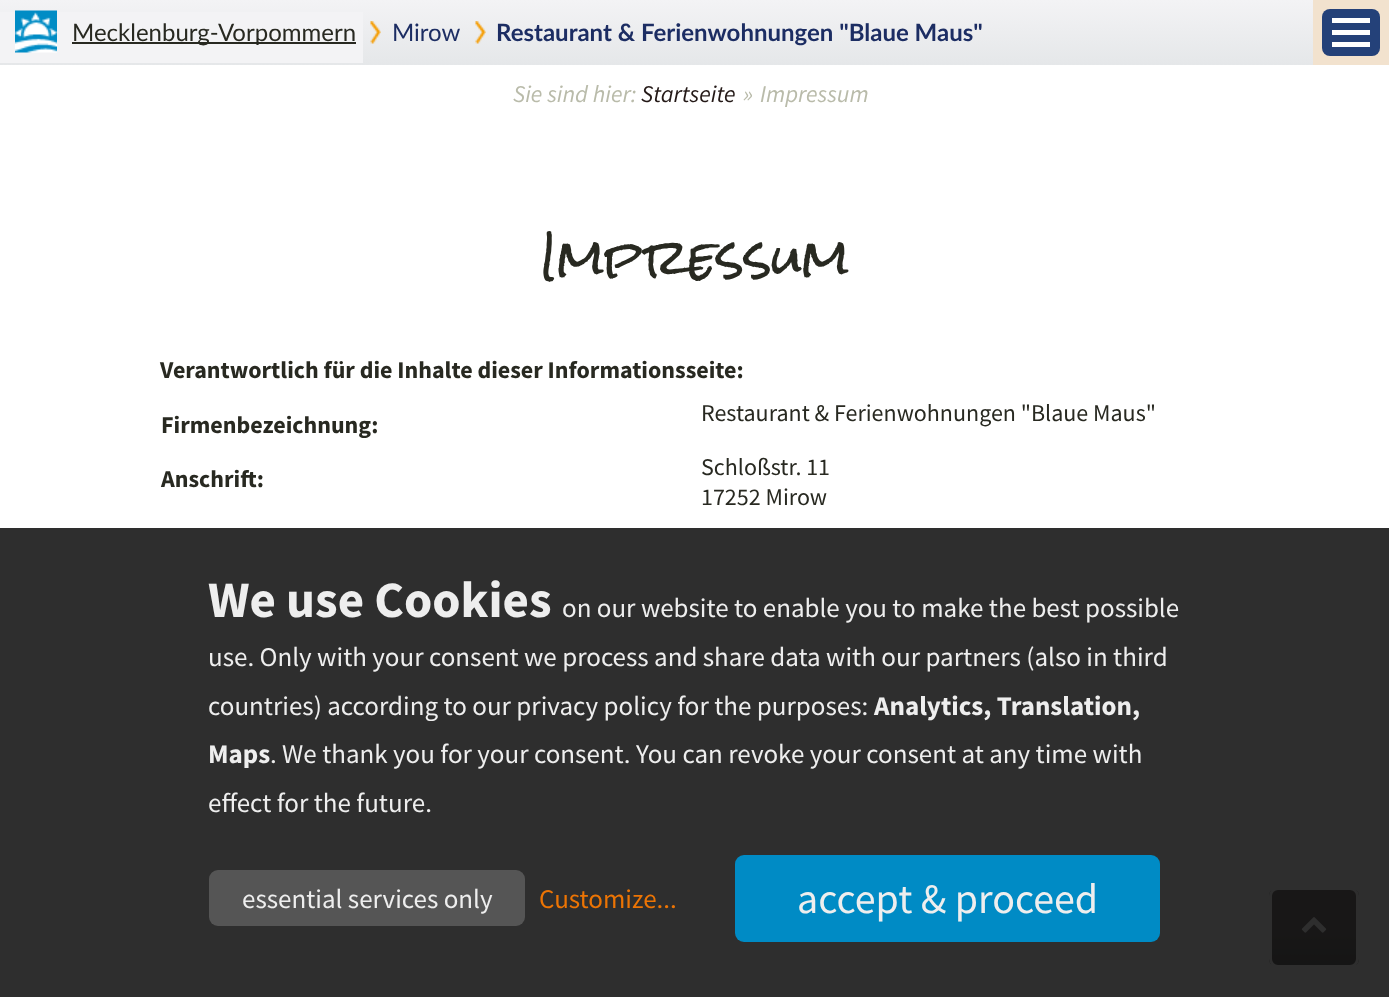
<svg xmlns="http://www.w3.org/2000/svg" width="1389" height="997" viewBox="0 0 1389 997">
  <style>
    .t1 { font: 24px Lato; fill: #282921; }
    .t2 { font: 24px Lato; fill: #1c2d63; }
    .t3 { font: bold 24px Lato; fill: #1c2d63; }
    .t4 { font: italic 24px Source Sans Pro; fill: #b9bbaa; }
    .t5 { font: italic 24px Source Sans Pro; fill: #241917; }
    .t6 { font: 48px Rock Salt; fill: #282921; }
    .t7 { font: bold 24px Source Sans Pro; fill: #282921; }
    .t8 { font: 24px Source Sans Pro; fill: #282921; }
    .t9 { font: bold 51px Source Sans Pro; fill: #eee; }
    .t10 { font: 27px Source Sans Pro; fill: #eee; }
    .t11 { font: bold 27px Source Sans Pro; fill: #eee; }
    .t12 { font: 27px Source Sans Pro; fill: #ec7404; }
    .t13 { font: 42px Source Sans Pro; fill: #eee; }
  </style>
  <defs>
    <linearGradient id="g1" gradientUnits="userSpaceOnUse" x1="695" y1="0" x2="695" y2="65"><stop offset="0" stop-color="#f3f3f5"/><stop offset="1" stop-color="#e5e7e9"/></linearGradient>
    <clipPath id="clip1"><rect x="1269" y="887" width="90" height="81" rx="9"/></clipPath>
    <linearGradient id="g2" gradientUnits="userSpaceOnUse" x1="1314" y1="890" x2="1314" y2="965"><stop offset="0" stop-color="#241917"/><stop offset="0.55" stop-color="#241917"/><stop offset="1" stop-color="#050303"/></linearGradient>
  </defs>
  <rect width="100%" height="100%" fill="#fff"/>
  <rect x="0" y="0" width="1313" height="65" fill="url(#g1)"/>
  <rect x="0" y="12" width="363" height="51" fill="#f3f3f5"/>
  <image x="15" y="10" width="42" height="43" href="images/1.png"/>
  <rect x="72" y="42" width="284" height="2" fill="#282921"/>
  <text x="72" y="41" class="t1">Mecklenburg-Vorpommern</text>
  <image x="370" y="21" width="11" height="23" href="images/2.png"/>
  <text x="392" y="41" class="t2">Mirow</text>
  <image x="475" y="21" width="11" height="23" href="images/2.png"/>
  <text x="496" y="41" class="t3">Restaurant &amp; Ferienwohnungen "Blaue Maus"</text>
  <rect x="1313" y="0" width="76" height="65" fill="#f2e2ce"/>
  <rect x="1322" y="9" width="58" height="47" rx="8" fill="#244179"/>
  <rect x="1332" y="30" width="38" height="5" fill="#fff"/>
  <rect x="1332" y="18" width="38" height="5" fill="#fff"/>
  <rect x="1332" y="42" width="38" height="5" fill="#fff"/>
  <text x="513" y="102" class="t4">Sie sind hier:</text>
  <text x="641" y="102" class="t5">Startseite</text>
  <text x="743" y="102" class="t4">»</text>
  <text x="760" y="102" class="t4">Impressum</text>
  <text x="540" y="276" class="t6">Impressum</text>
  <text x="160" y="378" class="t7">Verantwortlich für die Inhalte dieser Informationsseite:</text>
  <text x="161" y="433" class="t7">Firmenbezeichnung:</text>
  <text x="701" y="421" class="t8">Restaurant &amp; Ferienwohnungen "Blaue Maus"</text>
  <text x="701" y="475" class="t8">Schloßstr. 11</text>
  <text x="161" y="487" class="t7">Anschrift:</text>
  <text x="701" y="505" class="t8">17252 Mirow</text>
  <g clip-path="url(#clip1)">
    <rect x="1269" y="890" width="90" height="75" fill="url(#g2)"/>
  </g>
  <rect x="1270.5" y="888.5" width="87" height="78" rx="7.5" fill="none" stroke="#fff" stroke-width="3"/>
  <image x="1301" y="917" width="26" height="16" href="images/3.png"/>
  <rect x="0" y="528" width="1389" height="469" fill="#171717e6"/>
  <text x="208" y="617" class="t9">We use Cookies</text>
  <text x="562" y="617" class="t10">on our website to enable you to make the best possible</text>
  <text x="208" y="666" class="t10">use. Only with your consent we process and share data with our partners (also in third</text>
  <text x="208" y="715" class="t10">countries) according to our privacy policy for the purposes:</text>
  <text x="874" y="715" class="t11">Analytics, Translation,</text>
  <text x="208" y="763" class="t11">Maps</text>
  <text x="270" y="763" class="t10">. We thank you for your consent. You can revoke your consent at any time with</text>
  <text x="208" y="812" class="t10">effect for the future.</text>
  <rect x="209" y="870" width="316" height="56" rx="9" fill="#555"/>
  <text x="242" y="908" class="t10">essential services only</text>
  <text x="539" y="908" class="t12">Customize...</text>
  <rect x="735" y="855" width="425" height="87" rx="9" fill="#008bc5"/>
  <text x="797" y="913" class="t13">accept &amp; proceed</text>
</svg>
